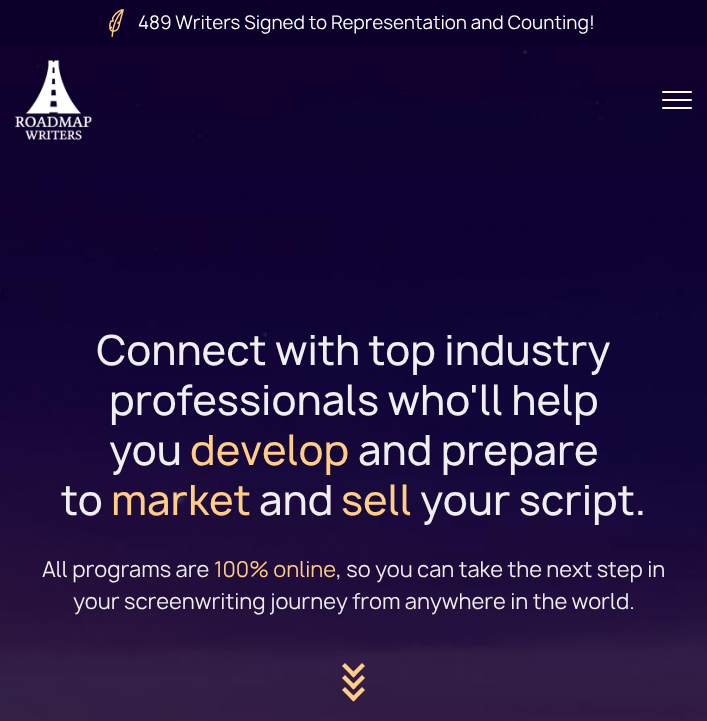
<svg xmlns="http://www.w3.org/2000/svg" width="707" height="721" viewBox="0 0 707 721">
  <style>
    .t1 { font: 18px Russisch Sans; fill: #fff; }
    .t2 { font: 500 40px Russisch Sans; fill: #efefef; }
    .t3 { font: 500 40px Russisch Sans; fill: #ffcd84; }
    .t4 { font: 21px Russisch Sans; fill: #efefef; }
    .t5 { font: 21px Russisch Sans; fill: #ffcd84; }
  </style>
  <rect width="100%" height="100%" fill="#0c002b"/>
  <image x="109" y="9" width="15" height="28" href="images/1.png"/>
  <text x="138" y="29" class="t1">489 Writers Signed to Representation and Counting!</text>
  <image x="0" y="46" width="707" height="675" href="images/3.png"/>
  <image x="15" y="60" width="77" height="80" href="images/2.png"/>
  <rect x="662" y="91" width="30" height="2" rx="1" fill="#fff"/>
  <rect x="662" y="99" width="30" height="2" rx="1" fill="#fff"/>
  <rect x="662" y="107" width="30" height="2" rx="1" fill="#fff"/>
  <text x="96" y="365" class="t2">Connect with top industry</text>
  <text x="109" y="415" class="t2">professionals who'll help</text>
  <text x="109" y="465" class="t2">you</text>
  <text x="190" y="465" class="t3">develop</text>
  <text x="358" y="465" class="t2">and prepare</text>
  <text x="61" y="515" class="t2">to</text>
  <text x="111" y="515" class="t3">market</text>
  <text x="259" y="515" class="t2">and</text>
  <text x="341" y="515" class="t3">sell</text>
  <text x="420" y="515" class="t2">your script.</text>
  <text x="42" y="577" class="t4">All programs are</text>
  <text x="214" y="577" class="t5">100% online</text>
  <text x="336" y="577" class="t4">, so you can take the next step in</text>
  <text x="73" y="609" class="t4">your screenwriting journey from anywhere in the world.</text>
  <path d="M362 663L365 666L353.5 677.5L350.5 674.5Z" fill="#ffcd84"/>
  <path d="M345 663L356.5 674.5L353.5 677.5L342 666Z" fill="#ffcd84"/>
  <path d="M362 675L365 678L353.5 689.5L350.5 686.5Z" fill="#ffcd84"/>
  <path d="M345 675L356.5 686.5L353.5 689.5L342 678Z" fill="#ffcd84"/>
  <path d="M362 687L365 690L353.5 701.5L350.5 698.5Z" fill="#ffcd84"/>
  <path d="M345 687L356.5 698.5L353.5 701.5L342 690Z" fill="#ffcd84"/>
</svg>
